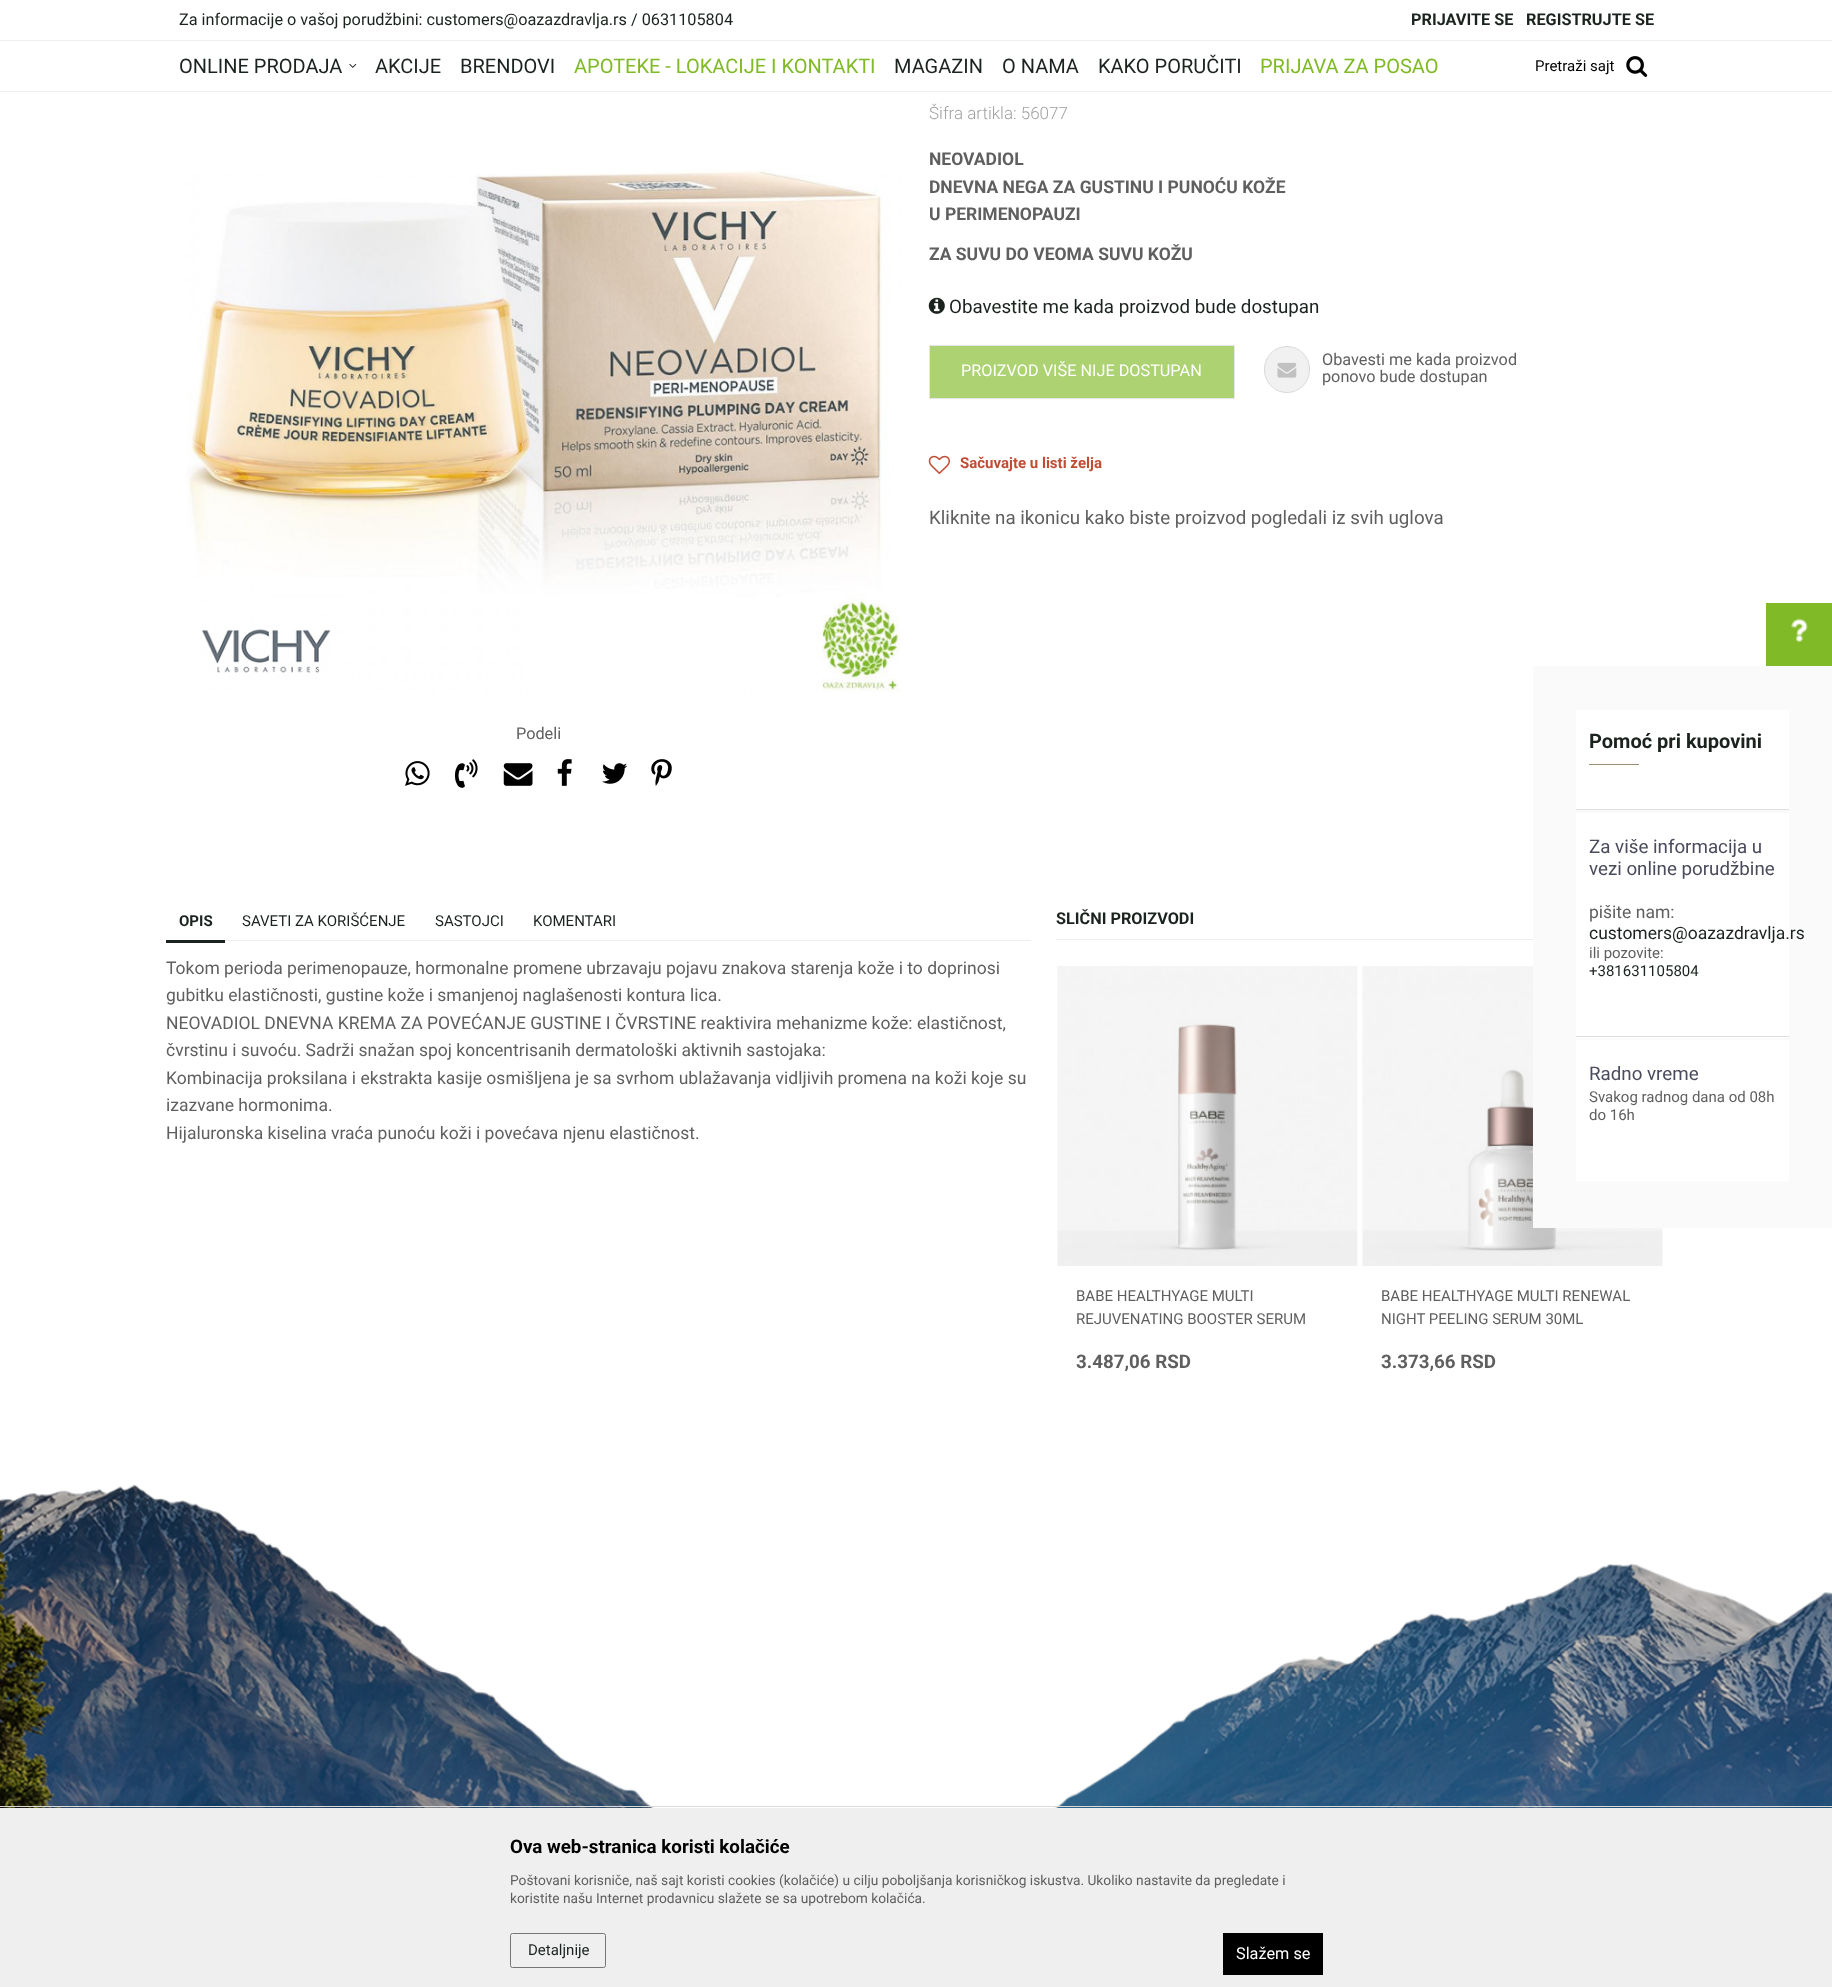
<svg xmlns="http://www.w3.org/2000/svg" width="1832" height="1987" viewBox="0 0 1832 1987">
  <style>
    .t1 { font: 16.25px Roboto; fill: #1b231e; }
    .t2 { font: bold 16.25px Roboto; fill: #1b231e; }
    .t3 { font: 20px Roboto; fill: #1b231e; }
    .t4 { font: 20px Roboto; fill: #80ba26; }
    .t5 { font: 15px Roboto; fill: #000; }
    .t6 { font: 300 17px Roboto; fill: #a1a1a1; }
    .t7 { font: bold 17.5px Roboto; fill: #5f5f5f; }
    .t8 { font: 18.75px Roboto; fill: #1b231e; }
    .t9 { font: 16.25px Roboto; fill: #fff; }
    .t10 { font: 16.25px Roboto; fill: #5f5f5f; }
    .t11 { font: bold 15px Roboto; fill: #c04d33; }
    .t12 { font: 18.75px Roboto; fill: #5f5f5f; }
    .t13 { font: bold 20px Roboto; fill: #1b231e; }
    .t14 { font: 18.75px Roboto; fill: #4a4b5c; }
    .t15 { font: 17.5px Roboto; fill: #5f5f5f; }
    .t16 { font: 17.5px Roboto; fill: #1b231e; }
    .t17 { font: 15px Roboto; fill: #5f5f5f; }
    .t18 { font: 15px Roboto; fill: #1b231e; }
    .t19 { font: bold 15px Roboto; fill: #1b231e; }
    .t20 { font: bold 18.75px Roboto; fill: #5f5f5f; }
    .t21 { font: bold 18.75px Roboto; fill: #000; }
    .t22 { font: 13.75px Roboto; fill: #5f5f5f; }
  </style>
  <rect width="100%" height="100%" fill="#fff"/>
  <text x="179" y="25" class="t1">Za informacije o vašoj porudžbini: customers@oazazdravlja.rs / 0631105804</text>
  <text x="1411" y="25" class="t2">PRIJAVITE SE</text>
  <text x="1526" y="25" class="t2">REGISTRUJTE SE</text>
  <rect x="0" y="40" width="1832" height="1" fill="#eee"/>
  <rect x="0" y="91" width="1832" height="1" fill="#eee"/>
  <text x="179" y="73" class="t3">ONLINE PRODAJA</text>
  <image x="349" y="63" width="8" height="5" href="images/1.png"/>
  <text x="375" y="73" class="t3">AKCIJE</text>
  <text x="460" y="73" class="t3">BRENDOVI</text>
  <text x="574" y="73" class="t4">APOTEKE - LOKACIJE I KONTAKTI</text>
  <text x="894" y="73" class="t3">MAGAZIN</text>
  <text x="1002" y="73" class="t3">O NAMA</text>
  <text x="1098" y="73" class="t3">KAKO PORUČITI</text>
  <text x="1260" y="73" class="t4">PRIJAVA ZA POSAO</text>
  <text x="1535" y="71" class="t5">Pretraži sajt</text>
  <image x="1626" y="56" width="22" height="21" href="images/2.png"/>
  <text x="929" y="119" class="t6">Šifra artikla: 56077</text>
  <text x="929" y="165" class="t7">NEOVADIOL</text>
  <text x="929" y="193" class="t7">DNEVNA NEGA ZA GUSTINU I PUNOĆU KOŽE</text>
  <text x="929" y="220" class="t7">U PERIMENOPAUZI</text>
  <text x="929" y="260" class="t7">ZA SUVU DO VEOMA SUVU KOŽU</text>
  <image x="928" y="297" width="17" height="17" href="images/3.png"/>
  <text x="949" y="313" class="t8">Obavestite me kada proizvod bude dostupan</text>
  <rect x="929.5" y="345.5" width="305" height="53" fill="#acd272" stroke="#e6e6e6"/>
  <text x="961" y="376" class="t9">PROIZVOD VIŠE NIJE DOSTUPAN</text>
  <rect x="1264.5" y="346.5" width="45" height="46" rx="22.5" fill="#f1f1f1" stroke="#d9d9d9"/>
  <image x="1277" y="362" width="20" height="16" href="images/4.png"/>
  <text x="1322" y="365" class="t10">Obavesti me kada proizvod</text>
  <text x="1322" y="382" class="t10">ponovo bude dostupan</text>
  <image x="928" y="455" width="22" height="19" href="images/5.png"/>
  <text x="960" y="468" class="t11">Sačuvajte u listi želja</text>
  <text x="929" y="524" class="t12">Kliknite na ikonicu kako biste proizvod pogledali iz svih uglova</text>
  <image x="186" y="170" width="716" height="523" href="images/6.png"/>
  <image x="201" y="629" width="130" height="44" href="images/7.png"/>
  <text x="516" y="739" class="t10">Podeli</text>
  <image x="405" y="761" width="25" height="25" href="images/8.png"/>
  <image x="455" y="759" width="23" height="29" href="images/9.png"/>
  <image x="503" y="763" width="30" height="23" href="images/10.png"/>
  <image x="557" y="759" width="15" height="27" href="images/11.png"/>
  <image x="602" y="763" width="26" height="21" href="images/12.png"/>
  <image x="651" y="759" width="21" height="27" href="images/13.png"/>
  <rect x="1766" y="603" width="66" height="63" fill="#80ba26"/>
  <image x="1791" y="618" width="17" height="24" href="images/14.png"/>
  <image x="1362" y="966" width="301" height="300" href="images/16.png"/>
  <rect x="1533" y="666" width="299" height="562" fill="#fafafa"/>
  <rect x="1576" y="710" width="213" height="99" fill="#fff"/>
  <rect x="1576" y="809" width="213" height="1" fill="#dedede"/>
  <text x="1589" y="748" class="t13">Pomoć pri kupovini</text>
  <rect x="1589" y="764" width="50" height="1" fill="#998d74"/>
  <rect x="1576" y="813" width="213" height="225" fill="#fff"/>
  <rect x="1576" y="1036" width="213" height="1" fill="#dedede"/>
  <text x="1589" y="853" class="t14">Za više informacija u</text>
  <text x="1589" y="875" class="t14">vezi online porudžbine</text>
  <text x="1589" y="918" class="t15">pišite nam:</text>
  <text x="1589" y="939" class="t16">customers@oazazdravlja.rs</text>
  <text x="1589" y="958" class="t17">ili pozovite:</text>
  <text x="1589" y="976" class="t18">+381631105804</text>
  <rect x="1576" y="1040" width="213" height="141" fill="#fff"/>
  <text x="1589" y="1080" class="t14">Radno vreme</text>
  <text x="1589" y="1102" class="t17">Svakog radnog dana od 08h</text>
  <text x="1589" y="1120" class="t17">do 16h</text>
  <rect x="225" y="940" width="806" height="1" fill="#eee"/>
  <rect x="166" y="940" width="59" height="3" fill="#1b231e"/>
  <text x="179" y="926" class="t19">OPIS</text>
  <text x="242" y="926" class="t18">SAVETI ZA KORIŠĆENJE</text>
  <text x="435" y="926" class="t18">SASTOJCI</text>
  <text x="533" y="926" class="t18">KOMENTARI</text>
  <text x="166" y="974" class="t15">Tokom perioda perimenopauze, hormonalne promene ubrzavaju pojavu znakova starenja kože i to doprinosi</text>
  <text x="166" y="1001" class="t15">gubitku elastičnosti, gustine kože i smanjenoj naglašenosti kontura lica.</text>
  <text x="166" y="1029" class="t15">NEOVADIOL DNEVNA KREMA ZA POVEĆANJE GUSTINE I ČVRSTINE reaktivira mehanizme kože: elastičnost,</text>
  <text x="166" y="1056" class="t15">čvrstinu i suvoću. Sadrži snažan spoj koncentrisanih dermatološki aktivnih sastojaka:</text>
  <text x="166" y="1084" class="t15">Kombinacija proksilana i ekstrakta kasije osmišljena je sa svrhom ublažavanja vidljivih promena na koži koje su</text>
  <text x="166" y="1111" class="t15">izazvane hormonima.</text>
  <text x="166" y="1139" class="t15">Hijaluronska kiselina vraća punoću koži i povećava njenu elastičnost.</text>
  <rect x="1056" y="939" width="477" height="1" fill="#eee"/>
  <text x="1056" y="924" class="t2">SLIČNI PROIZVODI</text>
  <image x="1057" y="966" width="301" height="300" href="images/15.png"/>
  <text x="1076" y="1301" class="t17">BABE HEALTHYAGE MULTI</text>
  <text x="1076" y="1324" class="t17">REJUVENATING BOOSTER SERUM</text>
  <text x="1076" y="1368" class="t20">3.487,06 RSD</text>
  <text x="1381" y="1301" class="t17">BABE HEALTHYAGE MULTI RENEWAL</text>
  <text x="1381" y="1324" class="t17">NIGHT PEELING SERUM 30ML</text>
  <text x="1381" y="1368" class="t20">3.373,66 RSD</text>
  <image x="0" y="1484" width="1832" height="324" href="images/17.png"/>
  <rect x="-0.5" y="1806.5" width="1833" height="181" fill="none" stroke="#d9d9d9"/>
  <rect x="0" y="1808" width="1832" height="179" fill="#efefef"/>
  <text x="510" y="1853" class="t21">Ova web-stranica koristi kolačiće</text>
  <text x="510" y="1885" class="t22">Poštovani korisniče, naš sajt koristi cookies (kolačiće) u cilju poboljšanja korisničkog iskustva. Ukoliko nastavite da pregledate i</text>
  <text x="510" y="1903" class="t22">koristite našu Internet prodavnicu slažete se sa upotrebom kolačića.</text>
  <rect x="510.5" y="1933.5" width="95" height="34" rx="2" fill="none" stroke="#767676"/>
  <text x="528" y="1955" class="t18">Detaljnije</text>
  <rect x="1223" y="1933" width="100" height="42" fill="#000"/>
  <text x="1236" y="1959" class="t9">Slažem se</text>
</svg>
